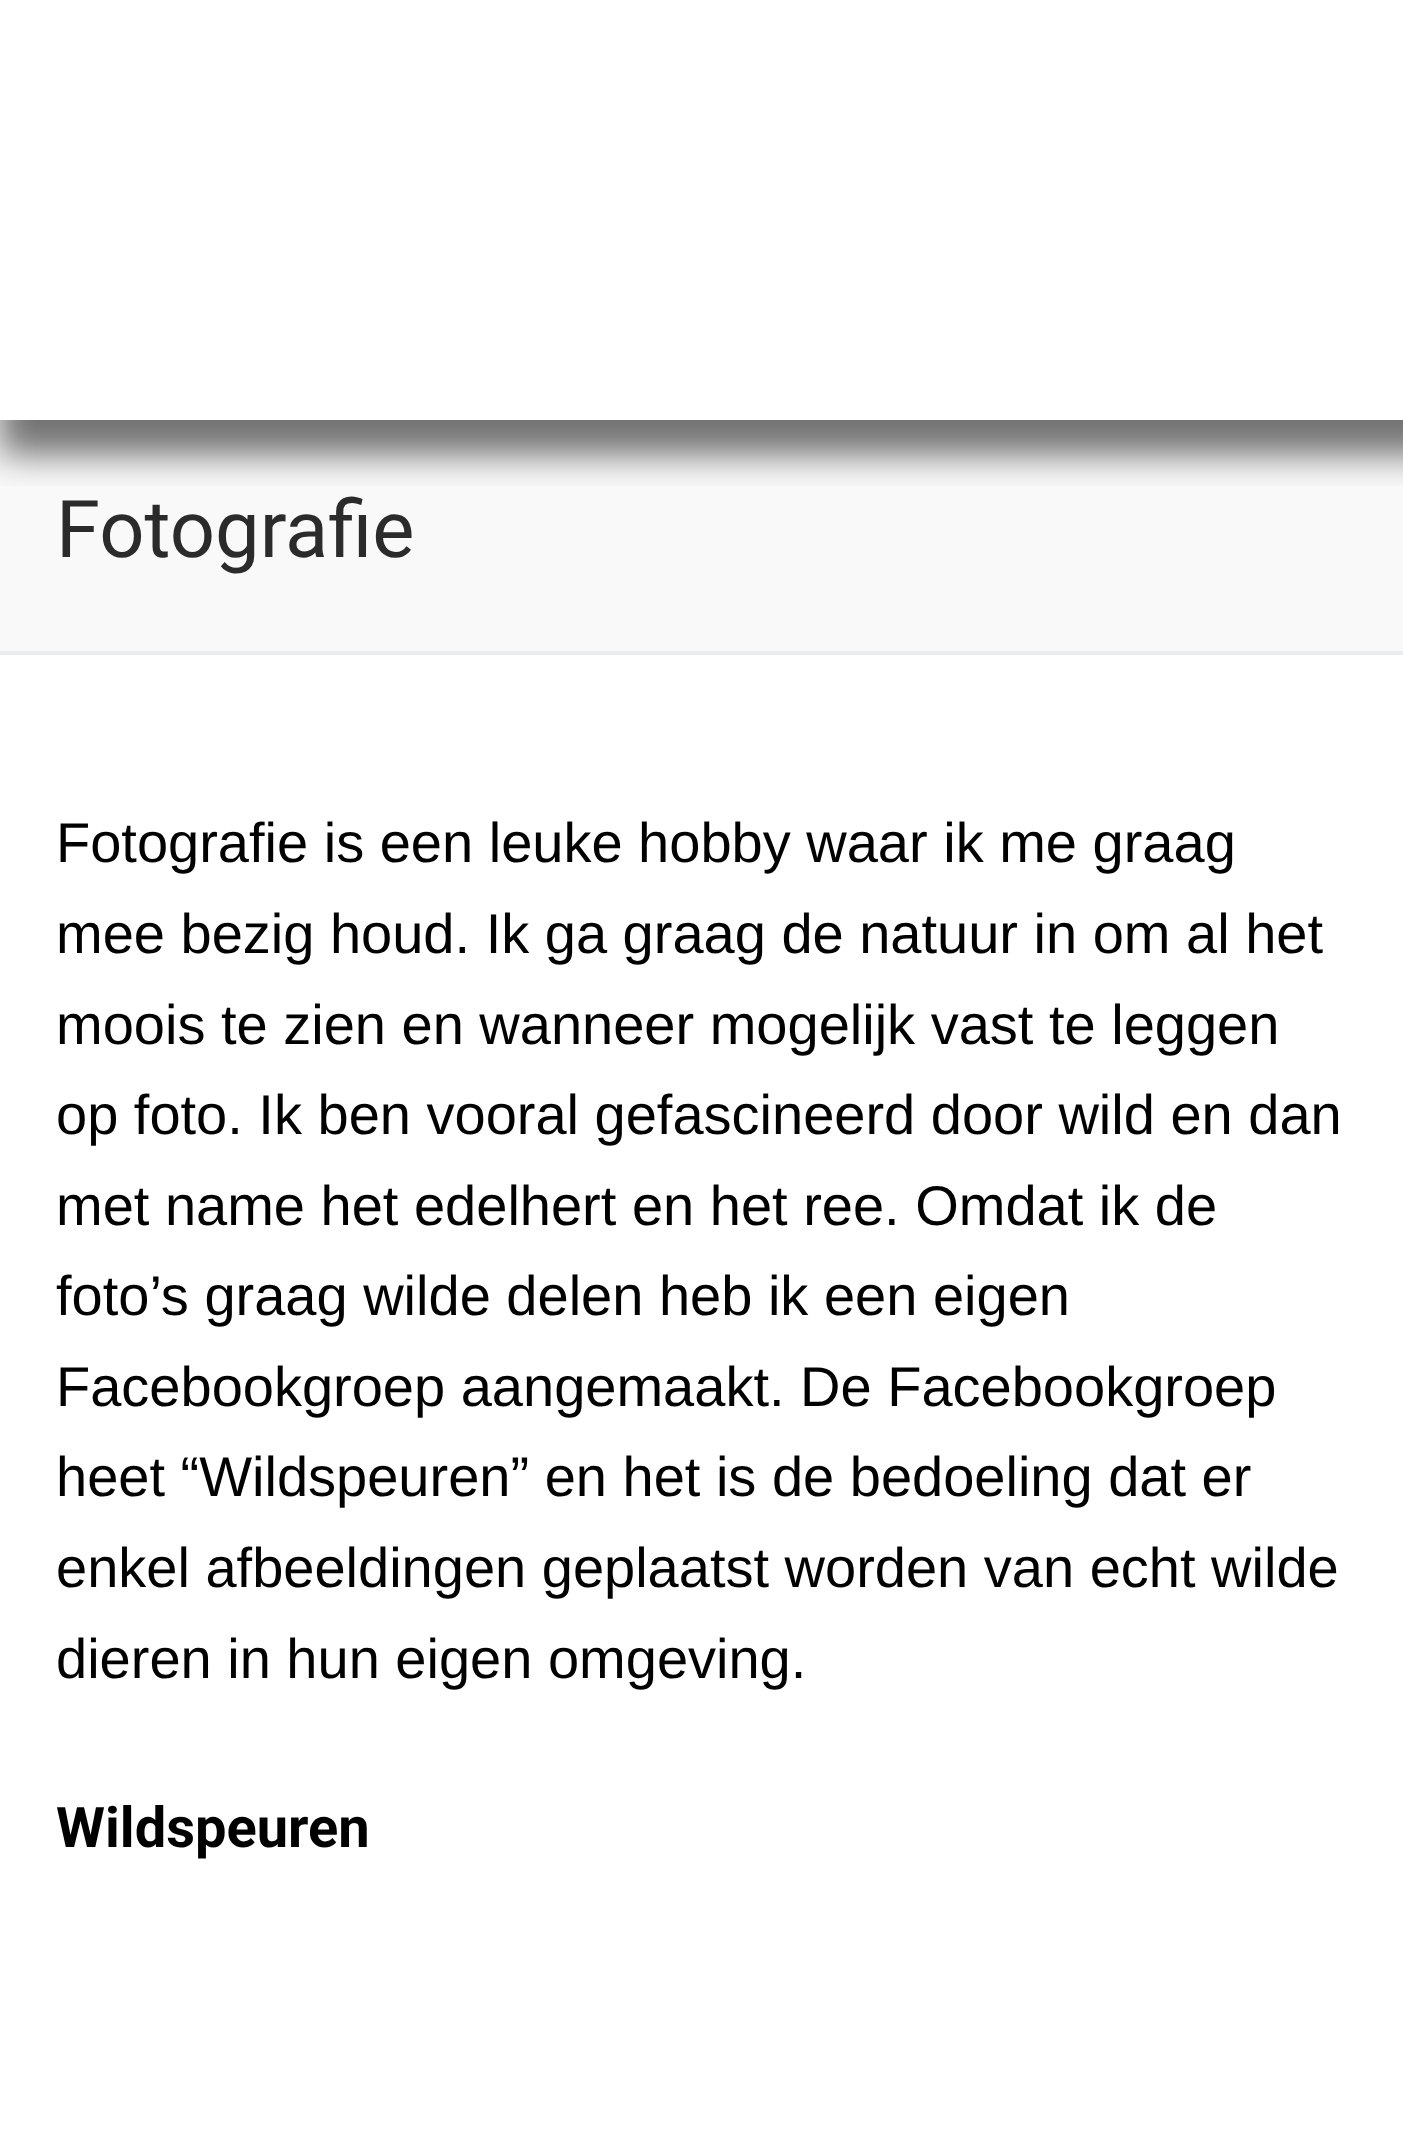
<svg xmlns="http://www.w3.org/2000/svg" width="1403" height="2149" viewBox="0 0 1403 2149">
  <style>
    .t1 { font: 79.5px Roboto; fill: #2b2b2b; }
    .t2 { font: 56px Liberation Sans; fill: #000; }
    .t3 { font: bold 56px Roboto; fill: #000; }
  </style>
  <defs>
    <clipPath id="clip1"><rect x="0" y="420" width="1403" height="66"/></clipPath>
  </defs>
  <rect width="100%" height="100%" fill="#fff"/>
  <rect x="0" y="420" width="1403" height="231" fill="#f9f9f9"/>
  <g clip-path="url(#clip1)">
    <rect x="0" y="-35" width="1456" height="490" fill="#0000008a" filter="blur(17.5px)"/>
  </g>
  <rect x="0" y="651" width="1403" height="4" fill="#eaecee"/>
  <text x="56" y="557" class="t1">Fotografie</text>
  <text x="56" y="862" class="t2">Fotografie is een leuke hobby waar ik me graag</text>
  <text x="56" y="953" class="t2">mee bezig houd. Ik ga graag de natuur in om al het</text>
  <text x="56" y="1044" class="t2">moois te zien en wanneer mogelijk vast te leggen</text>
  <text x="56" y="1134" class="t2">op foto. Ik ben vooral gefascineerd door wild en dan</text>
  <text x="56" y="1225" class="t2">met name het edelhert en het ree. Omdat ik de</text>
  <text x="56" y="1315" class="t2">foto’s graag wilde delen heb ik een eigen</text>
  <text x="56" y="1406" class="t2">Facebookgroep aangemaakt. De Facebookgroep</text>
  <text x="56" y="1496" class="t2">heet “Wildspeuren” en het is de bedoeling dat er</text>
  <text x="56" y="1587" class="t2">enkel afbeeldingen geplaatst worden van echt wilde</text>
  <text x="56" y="1678" class="t2">dieren in hun eigen omgeving.</text>
  <text x="56" y="1847" class="t3">Wildspeuren</text>
</svg>
